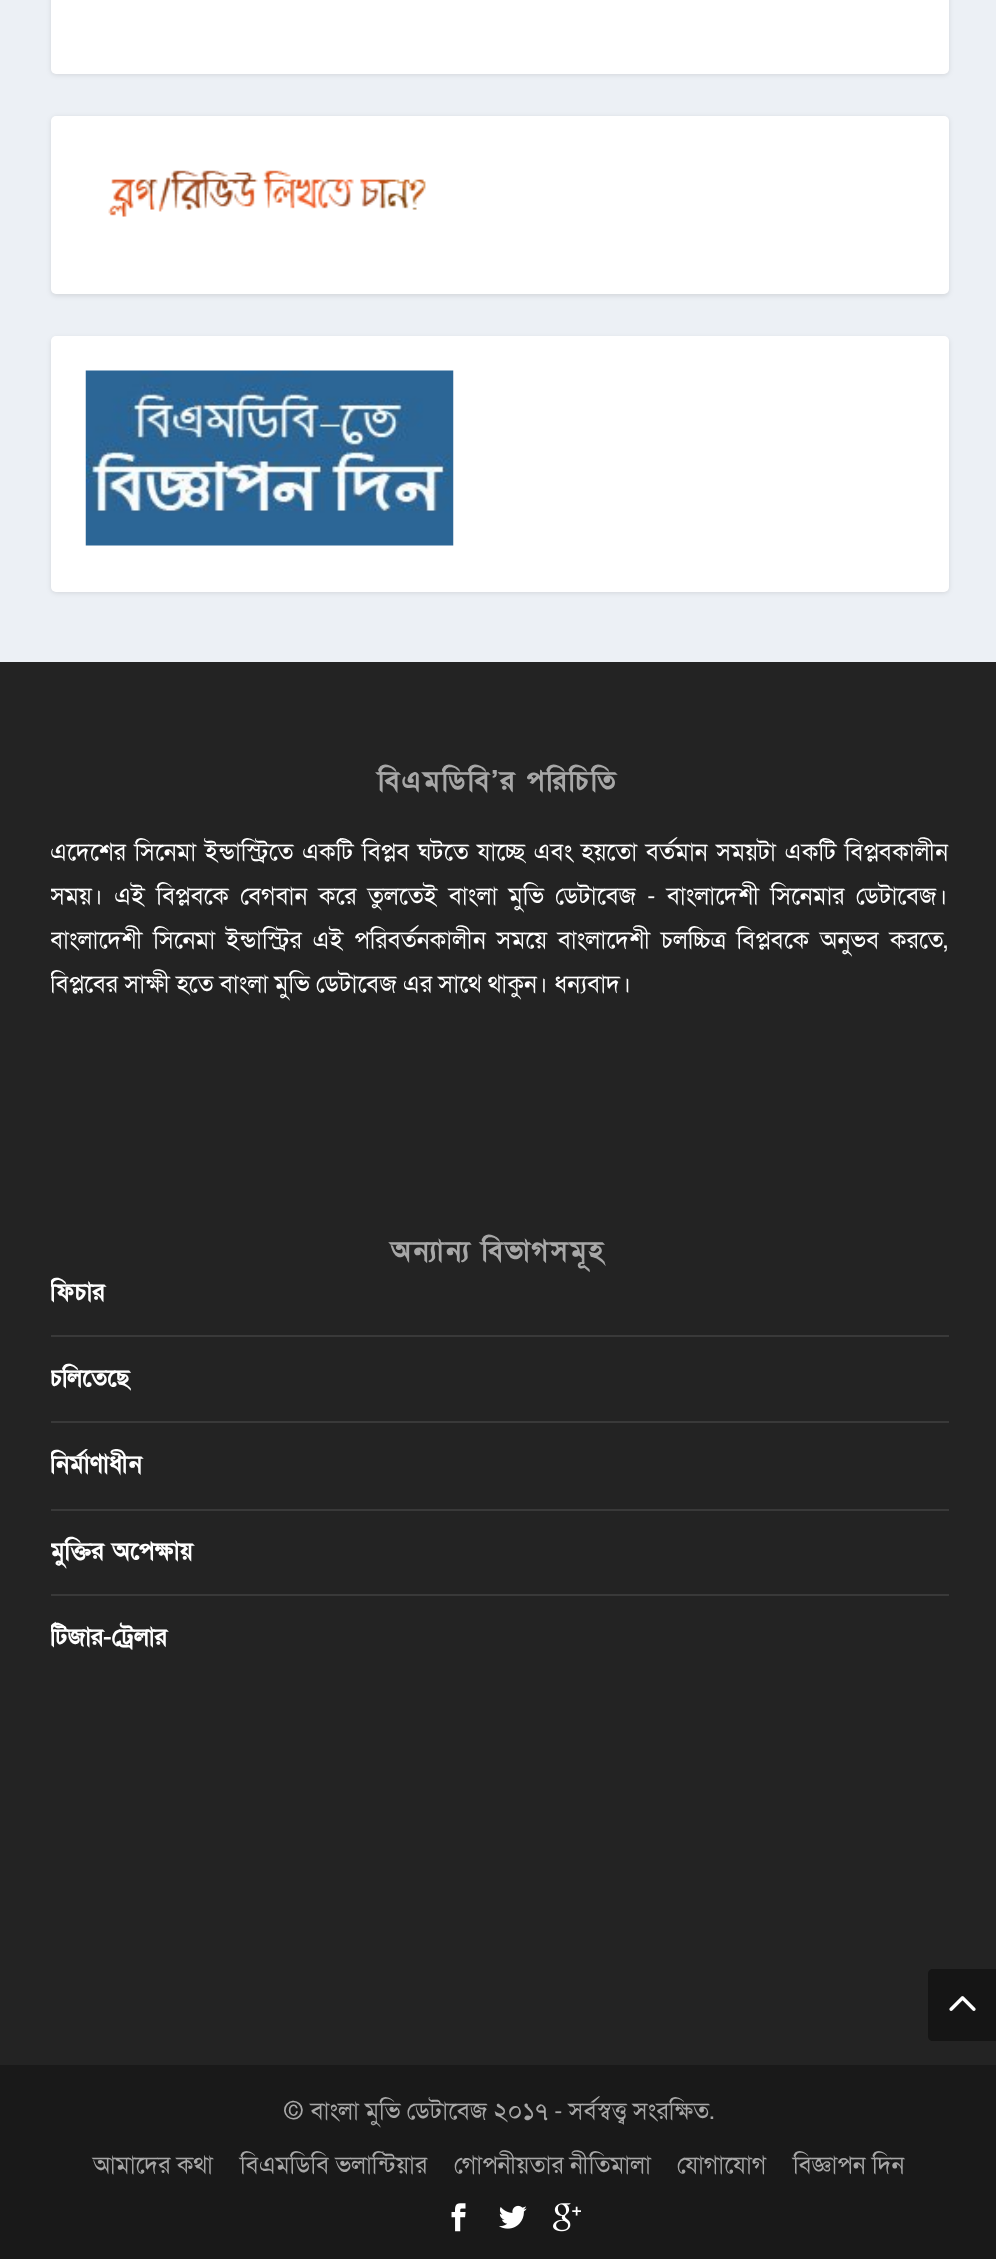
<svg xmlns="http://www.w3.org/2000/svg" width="996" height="2259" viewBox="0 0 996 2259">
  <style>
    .t1 { font: bold 28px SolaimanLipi; letter-spacing: 2.1px; fill: #a7a7a7; }
    .t2 { font: 24.5px SolaimanLipi; fill: #fff; }
    .t3 { font: bold 24.5px SolaimanLipi; fill: #fff; }
    .t4 { font: 24.5px SolaimanLipi; fill: #a7a7a7; }
  </style>
  <defs>
    <clipPath id="clip1"><rect x="51" y="662" width="898" height="379" rx="5"/></clipPath>
    <clipPath id="clip2"><rect x="51" y="1146" width="898" height="534" rx="5"/></clipPath>
  </defs>
  <rect width="100%" height="100%" fill="#ecf0f5"/>
  <rect x="51" y="-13" width="898" height="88" rx="5" fill="#0000001a" filter="blur(2.5px)"/>
  <rect x="51" y="-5" width="898" height="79" rx="5" fill="#fff"/>
  <rect x="51" y="117" width="898" height="179" rx="5" fill="#0000001a" filter="blur(2.5px)"/>
  <rect x="51" y="116" width="898" height="178" rx="5" fill="#fff"/>
  <image x="108" y="170" width="318" height="47" href="images/1.png"/>
  <rect x="51" y="338" width="898" height="255" rx="5" fill="#0000001a" filter="blur(2.5px)"/>
  <rect x="51" y="336" width="898" height="256" rx="5" fill="#fff"/>
  <image x="85" y="370" width="369" height="176" href="images/2.png"/>
  <rect x="0" y="662" width="996" height="1403" fill="#232323"/>
  <text x="378" y="790" word-spacing="-2" class="t1">বিএমডিবি’র পরিচিতি</text>
  <text x="50" y="860" word-spacing="2.25" class="t2">এদেশের সিনেমা ইন্ডাস্ট্রিতে একটি বিপ্লব ঘটতে যাচ্ছে এবং হয়তো বর্তমান সময়টা একটি বিপ্লবকালীন</text>
  <g clip-path="url(#clip1)">
    <text x="50" y="904" word-spacing="5.1" class="t2">সময়। এই বিপ্লবকে বেগবান করে তুলতেই বাংলা মুভি ডেটাবেজ - বাংলাদেশী সিনেমার ডেটাবেজ।</text>
    <text x="50" y="948" word-spacing="4.5" class="t2">বাংলাদেশী সিনেমা ইন্ডাস্ট্রির এই পরিবর্তনকালীন সময়ে বাংলাদেশী চলচ্চিত্র বিপ্লবকে অনুভব করতে,</text>
    <text x="50" y="992" class="t2">বিপ্লবের সাক্ষী হতে বাংলা মুভি ডেটাবেজ এর সাথে থাকুন। ধন্যবাদ।</text>
  </g>
  <text x="391" y="1260" word-spacing="-2" class="t1">অন্যান্য বিভাগসমূহ</text>
  <rect x="51" y="1335" width="898" height="2" fill="#393939"/>
  <g clip-path="url(#clip2)">
    <text x="50" y="1300" class="t3">ফিচার</text>
  </g>
  <rect x="51" y="1421" width="898" height="2" fill="#393939"/>
  <g clip-path="url(#clip2)">
    <text x="50" y="1386" class="t3">চলিতেছে</text>
  </g>
  <rect x="51" y="1509" width="898" height="2" fill="#393939"/>
  <g clip-path="url(#clip2)">
    <text x="50" y="1472" class="t3">নির্মাণাধীন</text>
  </g>
  <rect x="51" y="1594" width="898" height="2" fill="#393939"/>
  <g clip-path="url(#clip2)">
    <text x="50" y="1559" class="t3">মুক্তির অপেক্ষায়</text>
    <text x="50" y="1645" class="t3">টিজার-ট্রেলার</text>
  </g>
  <rect x="0" y="2065" width="996" height="194" fill="#191919"/>
  <text x="283" y="2119" class="t4">© বাংলা মুভি ডেটাবেজ ২০১৭ - সর্বস্বত্ত্ব সংরক্ষিত.</text>
  <text x="93" y="2173" class="t4">আমাদের কথা</text>
  <text x="240" y="2173" class="t4">বিএমডিবি ভলান্টিয়ার</text>
  <text x="454" y="2173" class="t4">গোপনীয়তার নীতিমালা</text>
  <text x="677" y="2173" class="t4">যোগাযোগ</text>
  <text x="793" y="2173" class="t4">বিজ্ঞাপন দিন</text>
  <image x="451" y="2203" width="15" height="29" href="images/3.png"/>
  <image x="499" y="2205" width="28" height="24" href="images/4.png"/>
  <image x="553" y="2203" width="28" height="29" href="images/5.png"/>
  <path d="M933 1969H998V2041H933C930 2041 928 2039 928 2036V1974C928 1971 930 1969 933 1969Z" fill="#151515"/>
  <image x="949" y="1996" width="27" height="15" href="images/6.png"/>
</svg>
